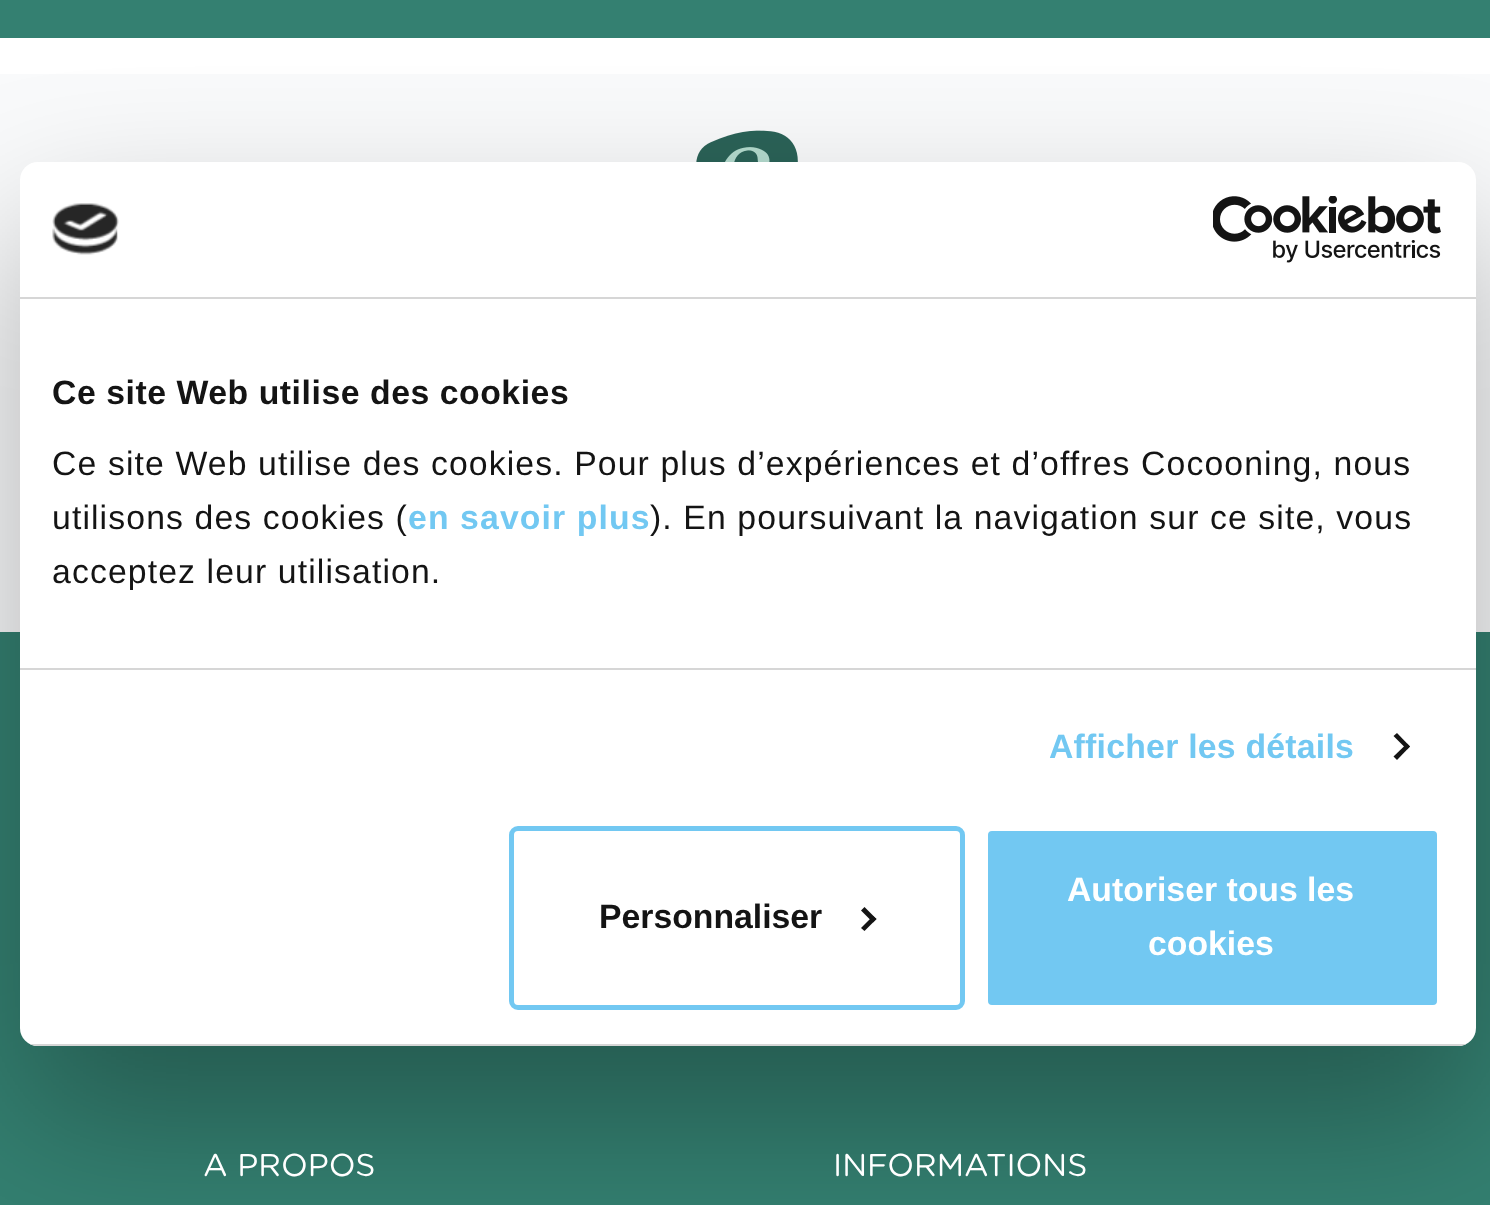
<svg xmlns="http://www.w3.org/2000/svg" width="1490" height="1205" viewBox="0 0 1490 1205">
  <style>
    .t1 { font: bold 33.75px Liberation Sans; letter-spacing: 0.55px; fill: #141414; }
    .t2 { font: 33.75px Liberation Sans; letter-spacing: 1.12px; fill: #141414; }
    .t3 { font: bold 33.75px Liberation Sans; letter-spacing: 1.12px; fill: #72c8f2; }
    .t4 { font: bold 33.75px Liberation Sans; letter-spacing: 0.25px; fill: #72c8f2; }
    .t5 { font: bold 33.75px Liberation Sans; fill: #141414; }
    .t6 { font: bold 33.75px Liberation Sans; fill: #fff; }
    .t7 { font: 31.5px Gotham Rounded; fill: #fff; }
  </style>
  <defs>
    <clipPath id="clip1"><rect x="20" y="162" width="1456" height="884" rx="18"/></clipPath>
  </defs>
  <rect width="100%" height="100%" fill="#fff"/>
  <rect x="0" y="0" width="1490" height="38" fill="#348071"/>
  <rect x="0" y="74" width="1490" height="558" fill="#f9fafb"/>
  <image x="696" y="130" width="102" height="32" href="images/3.png"/>
  <rect x="0" y="632" width="1490" height="573" fill="#348071"/>
  <rect x="20" y="234" width="1456" height="884" rx="18" fill="#0000004d" filter="blur(76.5px)"/>
  <rect x="20" y="162" width="1456" height="884" rx="18" fill="#fff"/>
  <rect x="20" y="297" width="1456" height="2" fill="#d6d6d6"/>
  <image x="52" y="203" width="67" height="52" href="images/1.png"/>
  <image x="1213" y="196" width="228" height="67" href="images/2.png"/>
  <rect x="20" y="668" width="1456" height="2" fill="#d6d6d6"/>
  <text x="52" y="404" class="t1">Ce site Web utilise des cookies</text>
  <text x="52" y="475" class="t2">Ce site Web utilise des cookies. Pour plus d’expériences et d’offres Cocooning, nous</text>
  <text x="52" y="529" class="t2">utilisons des cookies (</text>
  <text x="408" y="529" class="t3">en savoir plus</text>
  <text x="650" y="529" class="t2">). En poursuivant la navigation sur ce site, vous</text>
  <text x="52" y="583" class="t2">acceptez leur utilisation.</text>
  <text x="1049" y="758" class="t4">Afficher les détails</text>
  <path d="M1397 733L1410 746.5L1407 749.5L1393.5 736Z" fill="#141414"/>
  <path d="M1407 743.5L1410 746.5L1397 760L1393.5 756.5Z" fill="#141414"/>
  <g clip-path="url(#clip1)">
    <rect x="30" y="1044" width="1436" height="2" fill="#d6d6d6"/>
  </g>
  <rect x="511.5" y="828.5" width="451" height="179" rx="6.5" fill="none" stroke="#72c8f2" stroke-width="5"/>
  <text x="599" y="928" class="t5">Personnaliser</text>
  <path d="M864.5 907L876.5 919L873 922.5L861 910.5Z" fill="#141414"/>
  <path d="M873 916L876.5 919L864.5 931L861 928Z" fill="#141414"/>
  <rect x="985.5" y="828.5" width="454" height="179" rx="6.5" fill="#72c8f2" stroke="#fff" stroke-width="5"/>
  <text x="1067" y="901" class="t6">Autoriser tous les</text>
  <text x="1148" y="955" class="t6">cookies</text>
  <text x="203" y="1176" class="t7">A PROPOS</text>
  <text x="833" y="1176" class="t7">INFORMATIONS</text>
</svg>
